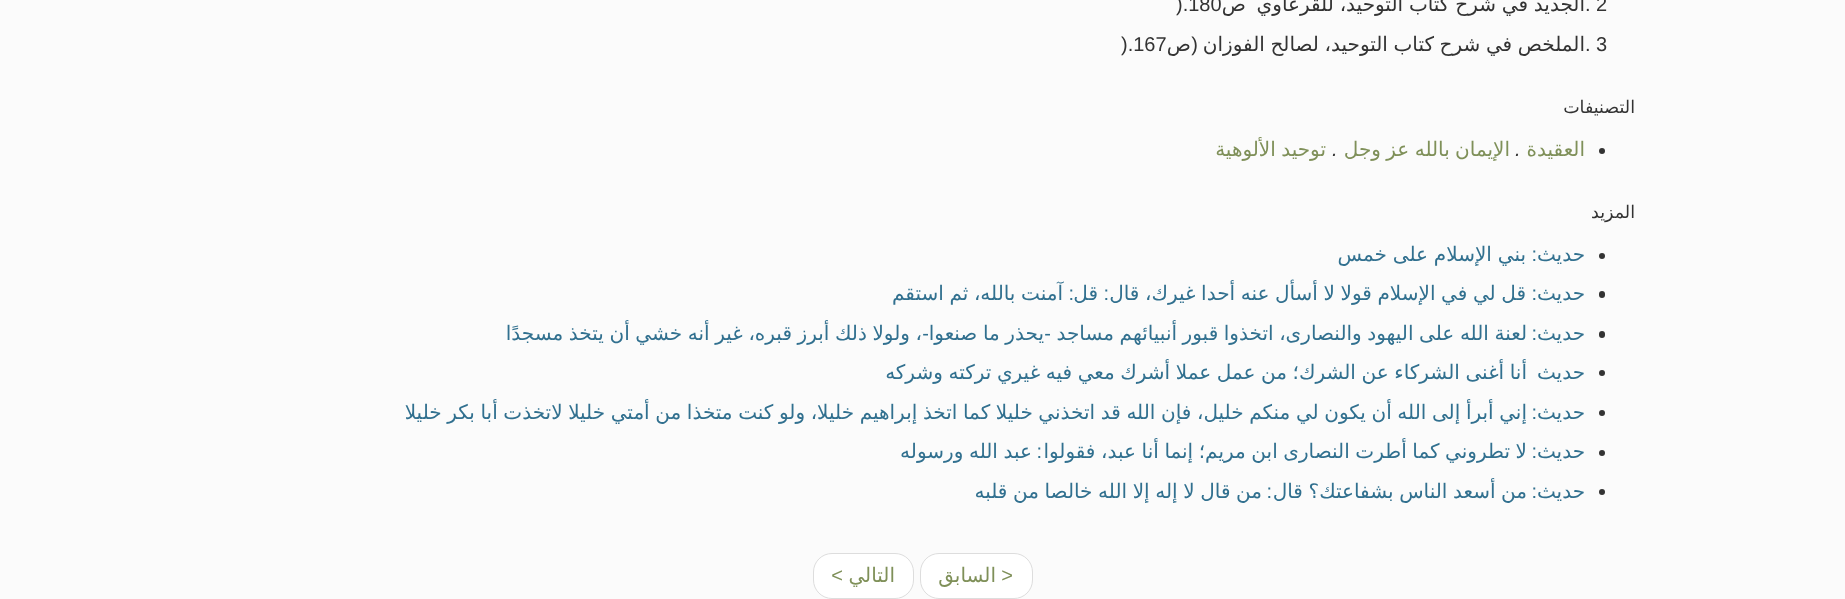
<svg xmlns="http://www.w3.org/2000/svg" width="1845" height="599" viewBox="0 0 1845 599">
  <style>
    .t1 { font: 20px Liberation Sans; fill: #333; }
    .t2 { font: 20px DejaVu Sans; direction: rtl; fill: #333; }
    .t3 { font: 20px Liberation Sans; direction: rtl; fill: #333; }
    .t4 { font: 17.5px DejaVu Sans; direction: rtl; fill: #333; }
    .t5 { font: 20px DejaVu Sans; direction: rtl; fill: #7f9059; }
    .t6 { font: italic 20px Liberation Sans; fill: #333; }
    .t7 { font: 20px DejaVu Sans; direction: rtl; fill: #31708f; }
    .t8 { font: 20px Liberation Sans; direction: rtl; fill: #31708f; }
    .t9 { font: 20px Liberation Sans; direction: rtl; fill: #7f9059; }
  </style>
  <rect width="100%" height="100%" fill="#fbfbfb"/>
  <text x="1585" y="11" class="t1">. 2</text>
  <text x="1585" y="11" word-spacing="-0.5" class="t2">الجديد في شرح كتاب التوحيد، للقرعاوي</text>
  <text x="1246" y="11" class="t2">ص</text>
  <text x="1176" y="11" class="t1">).180</text>
  <text x="1585" y="51" class="t1">. 3</text>
  <text x="1585" y="51" word-spacing="-0.75" class="t2">الملخص في شرح كتاب التوحيد، لصالح الفوزان</text>
  <text x="1198" y="51" class="t3">(</text>
  <text x="1191" y="51" class="t2">ص</text>
  <text x="1121" y="51" class="t1">).167</text>
  <text x="1635" y="113" class="t4">التصنيفات</text>
  <circle cx="1602" cy="151" r="3" fill="#333"/>
  <text x="1585" y="156" class="t5">العقيدة</text>
  <text x="1510" y="156" word-spacing="-1" class="t5">الإيمان بالله عز وجل</text>
  <text x="1326" y="156" word-spacing="-1" class="t5">توحيد الألوهية</text>
  <text x="1515" y="156" class="t6">.</text>
  <text x="1332" y="156" class="t6">.</text>
  <text x="1635" y="218" class="t4">المزيد</text>
  <circle cx="1602" cy="256" r="3" fill="#333"/>
  <text x="1585" y="261" class="t7">حديث</text>
  <text x="1537" y="261" class="t8">:</text>
  <text x="1526" y="261" word-spacing="-0.5" class="t7">بني الإسلام على خمس</text>
  <rect x="1599" y="291" width="6" height="7" rx="3" fill="#333"/>
  <text x="1585" y="300" class="t7">حديث</text>
  <text x="1537" y="300" class="t8">:</text>
  <text x="1526" y="300" word-spacing="-0.75" class="t7">قل لي في الإسلام قولا لا أسأل عنه أحدا غيرك، قال</text>
  <text x="1109" y="300" class="t8">:</text>
  <text x="1098" y="300" class="t7">قل</text>
  <text x="1074" y="300" class="t8">:</text>
  <text x="1063" y="300" word-spacing="-0.75" class="t7">آمنت بالله، ثم استقم</text>
  <rect x="1599" y="331" width="6" height="7" rx="3" fill="#333"/>
  <text x="1585" y="340" class="t7">حديث</text>
  <text x="1537" y="340" class="t8">:</text>
  <text x="1527" y="340" word-spacing="-0.75" class="t7">لعنة الله على اليهود والنصارى، اتخذوا قبور أنبيائهم مساجد</text>
  <text x="1044" y="340" word-spacing="-0.75" class="t7">يحذر ما صنعوا</text>
  <text x="922" y="340" word-spacing="-0.75" class="t7">، ولولا ذلك أبرز قبره، غير أنه خشي أن يتخذ مسجدًا</text>
  <text x="1051" y="340" class="t8">-</text>
  <text x="929" y="340" class="t8">-</text>
  <circle cx="1602" cy="373" r="3" fill="#333"/>
  <text x="1585" y="379" class="t7">حديث</text>
  <text x="1527" y="379" word-spacing="-0.75" class="t7">أنا أغنى الشركاء عن الشرك؛ من عمل عملا أشرك معي فيه غيري تركته وشركه</text>
  <text x="1527" y="419" word-spacing="-0.75" class="t7">إني أبرأ إلى الله أن يكون لي منكم خليل، فإن الله قد اتخذني خليلا كما اتخذ إبراهيم خليلا، ولو كنت متخذا من أمتي خليلا لاتخذت أبا بكر خليلا</text>
  <circle cx="1602" cy="413" r="3" fill="#333"/>
  <text x="1585" y="419" class="t7">حديث</text>
  <text x="1537" y="419" class="t8">:</text>
  <circle cx="1602" cy="453" r="3" fill="#333"/>
  <text x="1585" y="458" class="t7">حديث</text>
  <text x="1537" y="458" class="t8">:</text>
  <text x="1527" y="458" word-spacing="-0.75" class="t7">لا تطروني كما أطرت النصارى ابن مريم؛ إنما أنا عبد، فقولوا</text>
  <text x="1042" y="458" class="t8">:</text>
  <text x="1032" y="458" word-spacing="-0.75" class="t7">عبد الله ورسوله</text>
  <circle cx="1602" cy="492" r="3" fill="#333"/>
  <text x="1585" y="498" class="t7">حديث</text>
  <text x="1537" y="498" class="t8">:</text>
  <text x="1527" y="498" word-spacing="-0.75" class="t7">من أسعد الناس بشفاعتك؟ قال</text>
  <text x="1272" y="498" class="t8">:</text>
  <text x="1262" y="498" word-spacing="-0.75" class="t7">من قال لا إله إلا الله خالصا من قلبه</text>
  <rect x="920.5" y="553.5" width="112" height="45" rx="18.5" fill="#fff" stroke="#ddd"/>
  <text x="1013" y="582" class="t9">&lt;</text>
  <text x="996" y="582" class="t5">السابق</text>
  <rect x="813.5" y="553.5" width="100" height="45" rx="18.5" fill="#fff" stroke="#ddd"/>
  <text x="895" y="582" class="t5">التالي</text>
  <text x="843" y="582" class="t9">&gt;</text>
</svg>
